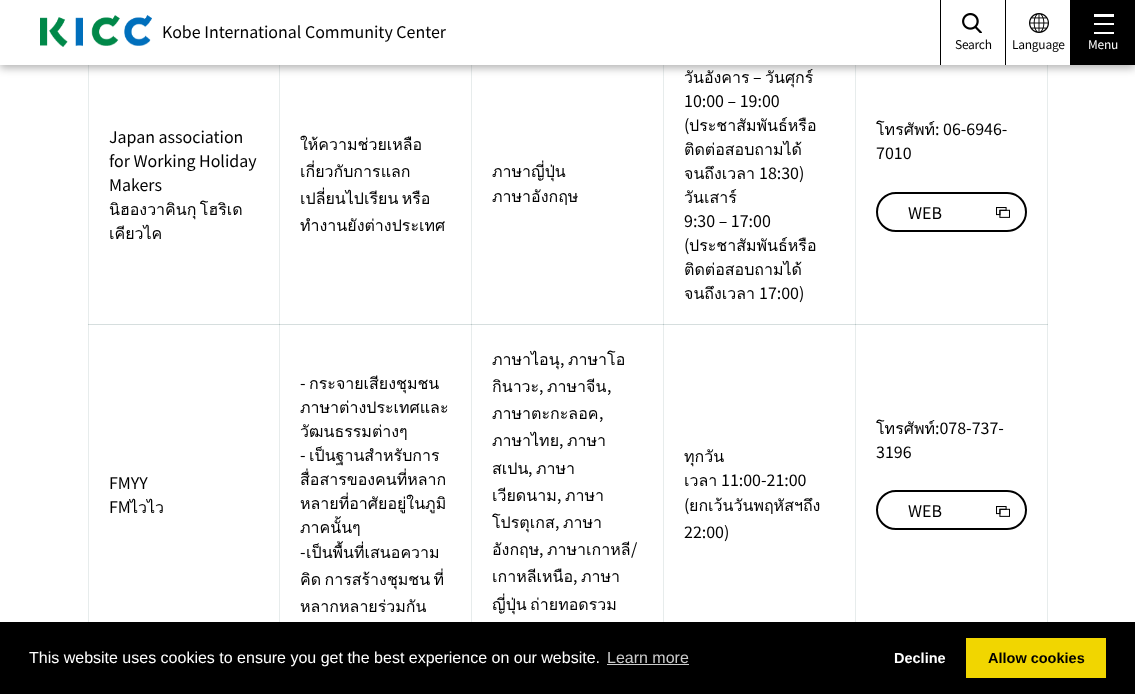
<svg xmlns="http://www.w3.org/2000/svg" width="1135" height="694" viewBox="0 0 1135 694">
  <style>
    .t1 { font: 100 16px Noto Sans JP; fill: #000; }
    .t2 { font: 100 12px Noto Sans JP; letter-spacing: -0.25px; fill: #000; }
    .t3 { font: 100 12px Noto Sans JP; letter-spacing: -0.25px; fill: #fff; }
    .t4 { font: 16px Loma; fill: #000; }
    .t5 { font: 16px Liberation Sans; fill: #fff; }
    .t6 { font: 16px Liberation Sans; fill: #ccc; }
    .t7 { font: bold 14.5px Liberation Sans; fill: #fff; }
    .t8 { font: bold 14.5px Liberation Sans; fill: #000; }
  </style>
  <rect width="100%" height="100%" fill="#fff"/>
  <rect x="279" y="65" width="1" height="557" fill="#e7ecec"/>
  <rect x="471" y="65" width="1" height="557" fill="#e7ecec"/>
  <rect x="663" y="65" width="1" height="557" fill="#e7ecec"/>
  <rect x="855" y="65" width="1" height="557" fill="#e7ecec"/>
  <rect x="1047" y="65" width="1" height="557" fill="#e7ecec"/>
  <rect x="88" y="324" width="960" height="1" fill="#d6dede"/>
  <rect x="279" y="324" width="1" height="1" fill="#b8c6c6"/>
  <rect x="471" y="324" width="1" height="1" fill="#b8c6c6"/>
  <rect x="663" y="324" width="1" height="1" fill="#b8c6c6"/>
  <rect x="88" y="65" width="1" height="557" fill="#e7ecec"/>
  <rect x="0" y="3" width="1135" height="65" fill="#0000004d" filter="blur(4px)"/>
  <rect x="0" y="0" width="1070" height="65" fill="#fff"/>
  <image x="40" y="15" width="112" height="32" href="images/1.png"/>
  <text x="162" y="38" class="t1">Kobe International Community Center</text>
  <rect x="940" y="0" width="1" height="65" fill="#000"/>
  <image x="962" y="13" width="20" height="20" href="images/2.png"/>
  <text x="955" y="49" class="t2">Search</text>
  <rect x="1005" y="0" width="1" height="65" fill="#000"/>
  <image x="1029" y="13" width="20" height="20" href="images/3.png"/>
  <text x="1012" y="49" class="t2">Language</text>
  <rect x="1070" y="0" width="65" height="65" fill="#000"/>
  <rect x="1094" y="14" width="20" height="3" fill="#fff"/>
  <rect x="1094" y="23" width="20" height="2" fill="#fff"/>
  <rect x="1094" y="32" width="20" height="2" fill="#fff"/>
  <text x="1088" y="49" class="t3">Menu</text>
  <text x="109" y="143" class="t1">Japan association</text>
  <text x="109" y="167" class="t1">for Working Holiday</text>
  <text x="109" y="191" class="t1">Makers</text>
  <text x="109" y="215" word-spacing="-2" class="t4">นิฮองวาคินกุ โฮริเด</text>
  <text x="109" y="239" class="t4">เคียวไค</text>
  <text x="300" y="150" class="t4">ให้ความช่วยเหลือ</text>
  <text x="300" y="177" class="t4">เกี่ยวกับการแลก</text>
  <text x="300" y="204" word-spacing="-2" class="t4">เปลี่ยนไปเรียน หรือ</text>
  <text x="300" y="231" class="t4">ทำงานยังต่างประเทศ</text>
  <text x="492" y="177" class="t4">ภาษาญี่ปุ่น</text>
  <text x="492" y="202" class="t4">ภาษาอังกฤษ</text>
  <text x="684" y="83" class="t4">วันอังคาร</text>
  <text x="753" y="83" class="t1">–</text>
  <text x="765" y="83" class="t4">วันศุกร์</text>
  <text x="684" y="107" class="t1">10:00 – 19:00</text>
  <text x="684" y="131" class="t1">(</text>
  <text x="689" y="131" class="t4">ประชาสัมพันธ์หรือ</text>
  <text x="684" y="155" class="t4">ติดต่อสอบถามได้</text>
  <text x="684" y="179" class="t4">จนถึงเวลา</text>
  <text x="759" y="179" class="t1">18:30)</text>
  <text x="684" y="203" class="t4">วันเสาร์</text>
  <text x="684" y="227" class="t1">9:30 – 17:00</text>
  <text x="684" y="251" class="t1">(</text>
  <text x="689" y="251" class="t4">ประชาสัมพันธ์หรือ</text>
  <text x="684" y="275" class="t4">ติดต่อสอบถามได้</text>
  <text x="684" y="299" class="t4">จนถึงเวลา</text>
  <text x="759" y="299" class="t1">17:00)</text>
  <text x="876" y="135" class="t4">โทรศัพท์</text>
  <text x="935" y="135" class="t1">: 06-6946-</text>
  <text x="876" y="159" class="t1">7010</text>
  <rect x="877" y="193" width="149" height="38" rx="19" fill="none" stroke="#000" stroke-width="2"/>
  <text x="908" y="219" class="t1">WEB</text>
  <image x="996" y="207" width="14" height="11" href="images/4.png"/>
  <rect x="88" y="324" width="1" height="1" fill="#c2cdcd"/>
  <text x="109" y="489" class="t1">FMYY</text>
  <text x="109" y="513" class="t1">FM</text>
  <text x="130" y="513" class="t4">ไวไว</text>
  <text x="300" y="389" class="t1">-</text>
  <text x="309" y="389" class="t4">กระจายเสียงชุมชน</text>
  <text x="300" y="413" class="t4">ภาษาต่างประเทศและ</text>
  <text x="300" y="437" class="t4">วัฒนธรรมต่างๆ</text>
  <text x="300" y="461" class="t1">-</text>
  <text x="309" y="461" class="t4">เป็นฐานสำหรับการ</text>
  <text x="300" y="485" class="t4">สื่อสารของคนที่หลาก</text>
  <text x="300" y="509" class="t4">หลายที่อาศัยอยู่ในภูมิ</text>
  <text x="300" y="533" class="t4">ภาคนั้นๆ</text>
  <text x="300" y="558" class="t1">-</text>
  <text x="306" y="558" class="t4">เป็นพื้นที่เสนอความ</text>
  <text x="300" y="585" word-spacing="-2" class="t4">คิด การสร้างชุมชน ที่</text>
  <text x="300" y="612" class="t4">หลากหลายร่วมกัน</text>
  <text x="492" y="365" class="t4">ภาษาไอนุ</text>
  <text x="560" y="365" class="t1">,</text>
  <text x="568" y="365" class="t4">ภาษาโอ</text>
  <text x="492" y="392" class="t4">กินาวะ</text>
  <text x="539" y="392" class="t1">,</text>
  <text x="547" y="392" class="t4">ภาษาจีน</text>
  <text x="607" y="392" class="t1">,</text>
  <text x="492" y="419" class="t4">ภาษาตะกะลอค</text>
  <text x="599" y="419" class="t1">,</text>
  <text x="492" y="446" class="t4">ภาษาไทย</text>
  <text x="559" y="446" class="t1">,</text>
  <text x="567" y="446" class="t4">ภาษา</text>
  <text x="492" y="474" class="t4">สเปน</text>
  <text x="528" y="474" class="t1">,</text>
  <text x="536" y="474" class="t4">ภาษา</text>
  <text x="492" y="501" class="t4">เวียดนาม</text>
  <text x="557" y="501" class="t1">,</text>
  <text x="565" y="501" class="t4">ภาษา</text>
  <text x="492" y="528" class="t4">โปรตุเกส</text>
  <text x="555" y="528" class="t1">,</text>
  <text x="563" y="528" class="t4">ภาษา</text>
  <text x="492" y="555" class="t4">อังกฤษ</text>
  <text x="539" y="555" class="t1">,</text>
  <text x="547" y="555" class="t4">ภาษาเกาหลี</text>
  <text x="631" y="555" class="t1">/</text>
  <text x="492" y="582" class="t4">เกาหลีเหนือ</text>
  <text x="573" y="582" class="t1">,</text>
  <text x="581" y="582" class="t4">ภาษา</text>
  <text x="492" y="610" word-spacing="-2" class="t4">ญี่ปุ่น ถ่ายทอดรวม</text>
  <text x="684" y="462" class="t4">ทุกวัน</text>
  <text x="684" y="486" class="t4">เวลา</text>
  <text x="721" y="486" class="t1">11:00-21:00</text>
  <text x="684" y="511" class="t1">(</text>
  <text x="689" y="511" class="t4">ยกเว้นวันพฤหัสฯถึง</text>
  <text x="684" y="538" class="t1">22:00)</text>
  <rect x="855" y="324" width="1" height="1" fill="#b8c6c6"/>
  <rect x="1047" y="324" width="1" height="1" fill="#c2cdcd"/>
  <text x="876" y="434" class="t4">โทรศัพท์</text>
  <text x="935" y="434" class="t1">:078-737-</text>
  <text x="876" y="458" class="t1">3196</text>
  <rect x="877" y="491" width="149" height="38" rx="19" fill="none" stroke="#000" stroke-width="2"/>
  <text x="908" y="517" class="t1">WEB</text>
  <image x="996" y="506" width="14" height="11" href="images/4.png"/>
  <rect x="0" y="622" width="1135" height="72" fill="#000"/>
  <text x="29" y="663" class="t5">This website uses cookies to ensure you get the best experience on our website.</text>
  <text x="607" y="663" class="t6">Learn more</text>
  <rect x="607" y="664" width="82" height="1" fill="#ccc"/>
  <text x="894" y="663" class="t7">Decline</text>
  <rect x="966" y="638" width="140" height="40" fill="#f1d600"/>
  <text x="988" y="663" class="t8">Allow cookies</text>
</svg>
